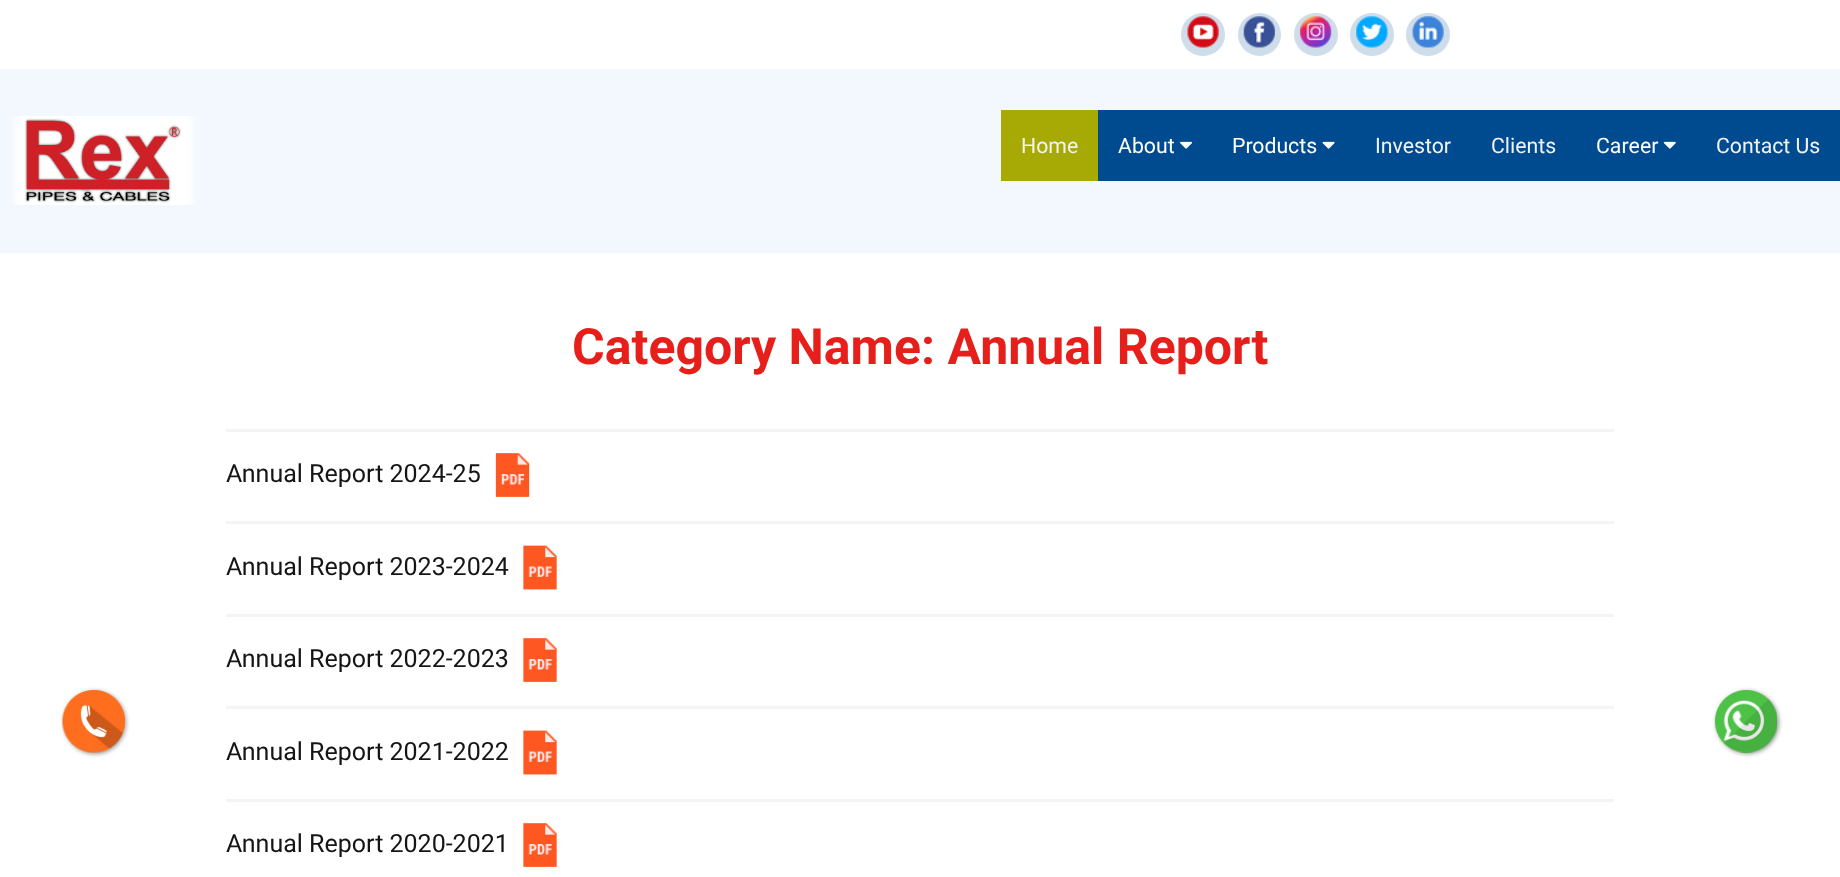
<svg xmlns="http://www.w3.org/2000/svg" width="1840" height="877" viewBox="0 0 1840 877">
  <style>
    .t1 { font: 21.25px Heebo; fill: #f2f2f2; }
    .t2 { font: 21.25px Heebo; fill: #fff; }
    .t3 { font: bold 50px Roboto; fill: #e71f1a; }
    .t4 { font: 25px Heebo; fill: #161414; }
  </style>
  <rect width="100%" height="100%" fill="#fff"/>
  <rect x="1181" y="13" width="44" height="43" rx="21.5" fill="#cfddeb"/>
  <image x="1187" y="16" width="32" height="32" href="images/1.png"/>
  <circle cx="1259.5" cy="34.5" r="21.5" fill="#cfddeb"/>
  <image x="1243" y="16" width="32" height="32" href="images/2.png"/>
  <rect x="1294" y="13" width="44" height="43" rx="21.5" fill="#cfddeb"/>
  <image x="1300" y="16" width="32" height="32" href="images/3.png"/>
  <rect x="1350" y="13" width="44" height="43" rx="21.5" fill="#cfddeb"/>
  <image x="1356" y="16" width="32" height="32" href="images/4.png"/>
  <rect x="1406" y="13" width="44" height="43" rx="21.5" fill="#cfddeb"/>
  <image x="1412" y="16" width="32" height="32" href="images/5.png"/>
  <rect x="0" y="69" width="1840" height="184" fill="#f2f8fd"/>
  <image x="12" y="116" width="184" height="89" href="images/6.png"/>
  <rect x="1098" y="110" width="742" height="71" fill="#004a90"/>
  <rect x="1001" y="110" width="97" height="71" fill="#a7aa04"/>
  <text x="1021" y="153" class="t1">Home</text>
  <text x="1118" y="153" class="t2">About</text>
  <image x="1180" y="141" width="13" height="8" href="images/7.png"/>
  <text x="1232" y="153" class="t2">Products</text>
  <image x="1322" y="141" width="13" height="8" href="images/8.png"/>
  <text x="1375" y="153" class="t1">Investor</text>
  <text x="1491" y="153" class="t1">Clients</text>
  <text x="1596" y="153" class="t2">Career</text>
  <image x="1663" y="141" width="13" height="8" href="images/9.png"/>
  <text x="1716" y="153" class="t1">Contact Us</text>
  <text x="572" y="364" class="t3">Category Name: Annual Report</text>
  <rect x="226" y="429" width="1388" height="3" fill="#f4f4f4"/>
  <text x="226" y="482" class="t4">Annual Report 2024-25</text>
  <image x="495" y="453" width="35" height="44" href="images/10.png"/>
  <rect x="226" y="521" width="1388" height="3" fill="#f4f4f4"/>
  <text x="226" y="575" class="t4">Annual Report 2023-2024</text>
  <image x="523" y="545" width="34" height="45" href="images/11.png"/>
  <rect x="226" y="614" width="1388" height="3" fill="#f4f4f4"/>
  <text x="226" y="667" class="t4">Annual Report 2022-2023</text>
  <image x="523" y="638" width="34" height="44" href="images/12.png"/>
  <rect x="226" y="706" width="1388" height="3" fill="#f4f4f4"/>
  <text x="226" y="760" class="t4">Annual Report 2021-2022</text>
  <image x="523" y="730" width="34" height="45" href="images/11.png"/>
  <rect x="226" y="799" width="1388" height="3" fill="#f4f4f4"/>
  <text x="226" y="852" class="t4">Annual Report 2020-2021</text>
  <image x="523" y="823" width="34" height="44" href="images/13.png"/>
  <rect x="64" y="691" width="62" height="63" rx="31" fill="#999" filter="blur(2px)"/>
  <image x="62" y="690" width="63" height="63" href="images/14.png"/>
  <rect x="1716" y="691" width="63" height="63" rx="31.5" fill="#999" filter="blur(2px)"/>
  <image x="1715" y="690" width="62" height="63" href="images/15.png"/>
</svg>
